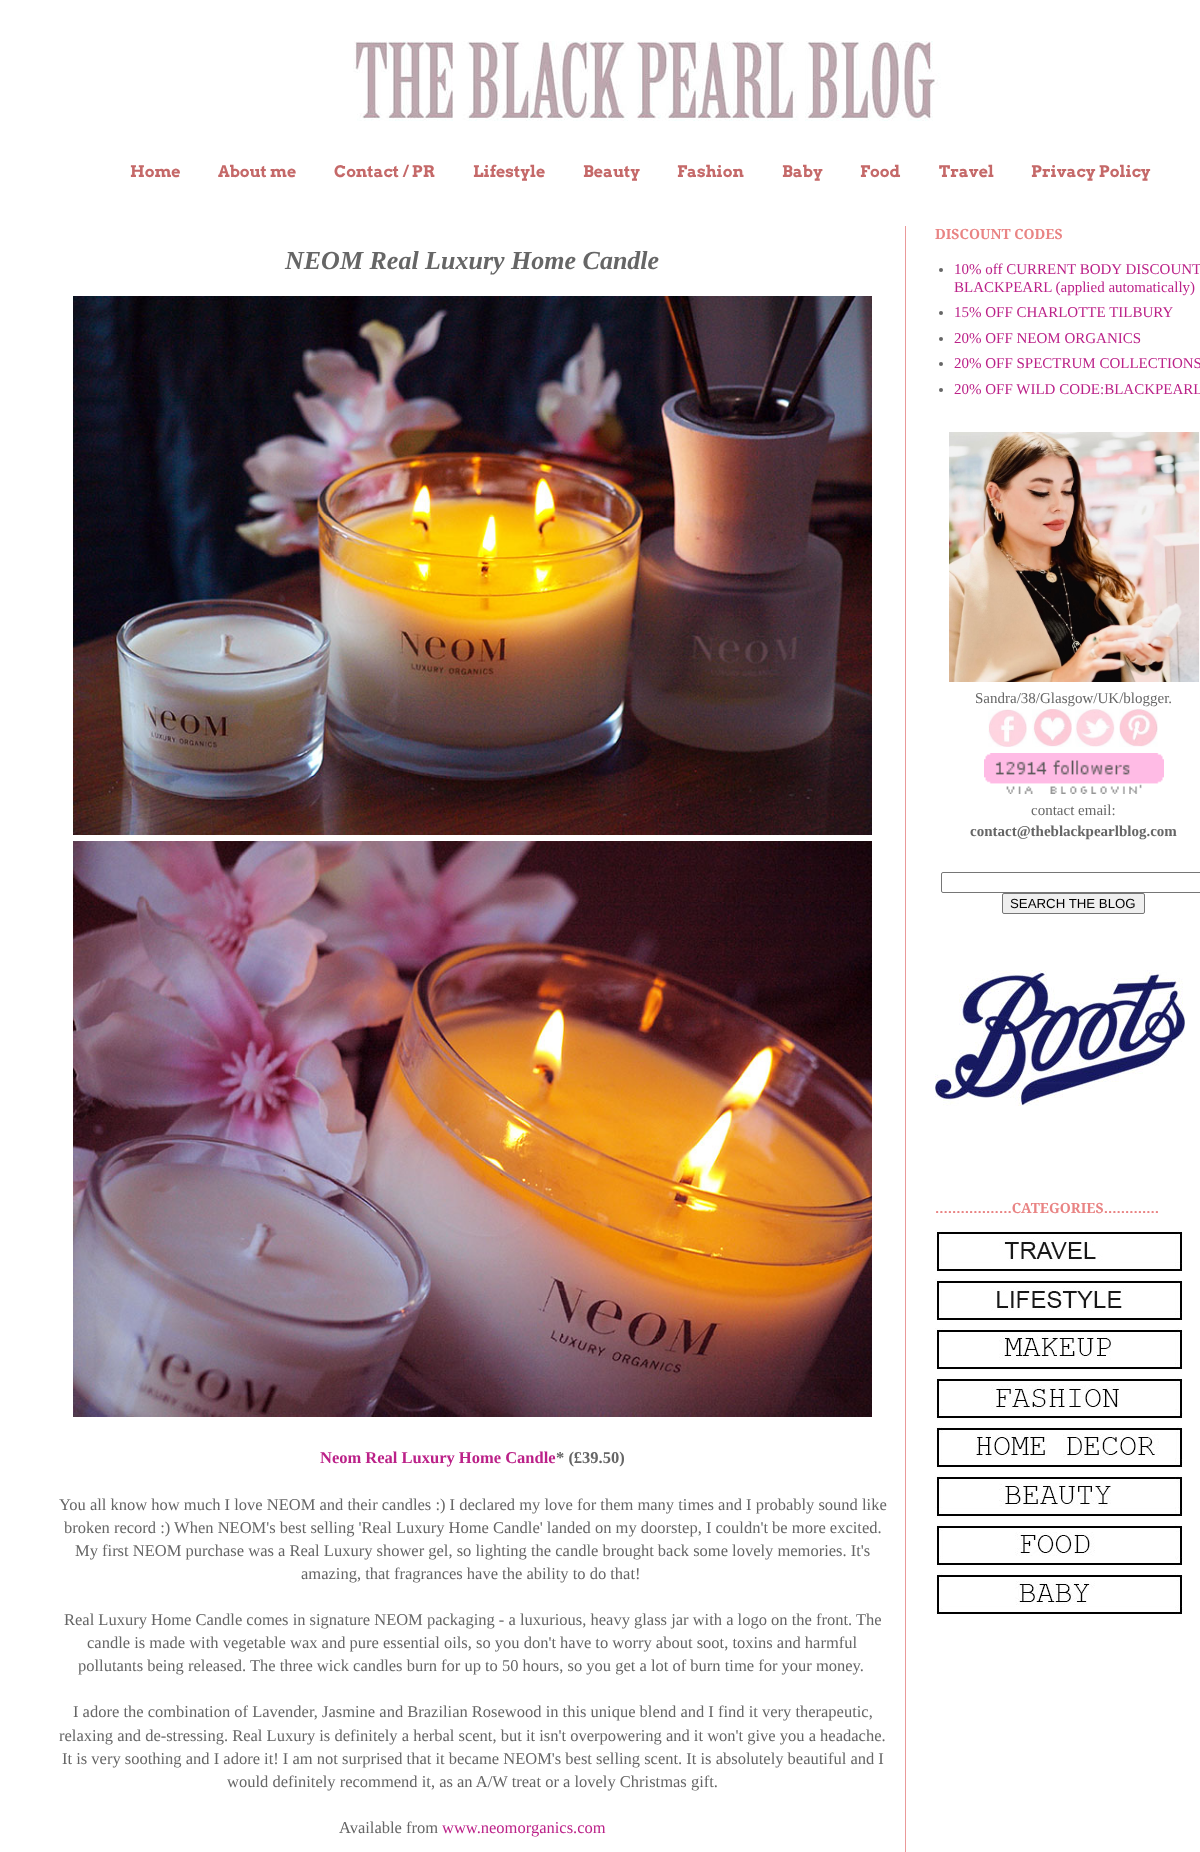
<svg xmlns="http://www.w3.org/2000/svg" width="1200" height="1852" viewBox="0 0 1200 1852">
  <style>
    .t1 { font: bold 16px Arvo; fill: #c56969; }
    .t2 { font: italic bold 26px Liberation Serif; fill: #666; }
    .t3 { font: bold 16.5px Liberation Serif; fill: #bb2188; }
    .t4 { font: bold 16.5px Liberation Serif; fill: #666; }
    .t5 { font: 16.5px Liberation Serif; fill: #666; }
    .t6 { font: 16.5px Liberation Serif; fill: #bb2188; }
    .t7 { font: bold 14px Droid Serif; fill: #e98484; }
    .t8 { font: 15px Liberation Serif; fill: #bb2188; }
    .t9 { font: 15px Liberation Serif; fill: #666; }
    .t10 { font: bold 15px Liberation Serif; fill: #666; }
    .t11 { font: 13.25px Liberation Sans; fill: #000; }
  </style>
  <rect width="100%" height="100%" fill="#fff"/>
  <image x="353" y="41" width="588" height="80" href="images/1.png"/>
  <text x="130" y="177" class="t1">Home</text>
  <text x="218" y="177" class="t1">About me</text>
  <text x="334" y="177" class="t1">Contact / PR</text>
  <text x="473" y="177" class="t1">Lifestyle</text>
  <text x="583" y="177" class="t1">Beauty</text>
  <text x="677" y="177" class="t1">Fashion</text>
  <text x="782" y="177" class="t1">Baby</text>
  <text x="860" y="177" class="t1">Food</text>
  <text x="939" y="177" class="t1">Travel</text>
  <text x="1031" y="177" class="t1">Privacy Policy</text>
  <rect x="905" y="226" width="1" height="1626" fill="#ea9999"/>
  <text x="285" y="269" class="t2">NEOM Real Luxury Home Candle</text>
  <image x="73" y="296" width="799" height="539" href="images/2.png"/>
  <image x="73" y="841" width="799" height="576" href="images/3.png"/>
  <text x="320" y="1463" class="t3">Neom Real Luxury Home Candle</text>
  <text x="556" y="1463" class="t4">* (£39.50)</text>
  <text x="59" y="1510" class="t5">You all know how much I love NEOM and their candles :) I declared my love for them many times and I probably sound like</text>
  <text x="64" y="1533" class="t5">broken record :) When NEOM's best selling 'Real Luxury Home Candle' landed on my doorstep, I couldn't be more excited.</text>
  <text x="75" y="1556" class="t5">My first NEOM purchase was a Real Luxury shower gel, so lighting the candle brought back some lovely memories. It's</text>
  <text x="301" y="1579" class="t5">amazing, that fragrances have the ability to do that!</text>
  <text x="64" y="1625" class="t5">Real Luxury Home Candle comes in signature NEOM packaging - a luxurious, heavy glass jar with a logo on the front. The</text>
  <text x="87" y="1648" class="t5">candle is made with vegetable wax and pure essential oils, so you don't have to worry about soot, toxins and harmful</text>
  <text x="78" y="1671" class="t5">pollutants being released. The three wick candles burn for up to 50 hours, so you get a lot of burn time for your money.</text>
  <text x="73" y="1717" class="t5">I adore the combination of Lavender, Jasmine and Brazilian Rosewood in this unique blend and I find it very therapeutic,</text>
  <text x="59" y="1741" class="t5">relaxing and de-stressing. Real Luxury is definitely a herbal scent, but it isn't overpowering and it won't give you a headache.</text>
  <text x="62" y="1764" class="t5">It is very soothing and I adore it! I am not surprised that it became NEOM's best selling scent. It is absolutely beautiful and I</text>
  <text x="227" y="1787" class="t5">would definitely recommend it, as an A/W treat or a lovely Christmas gift.</text>
  <text x="339" y="1833" class="t5">Available from</text>
  <text x="442" y="1833" class="t6">www.neomorganics.com</text>
  <text x="935" y="239" class="t7">DISCOUNT CODES</text>
  <circle cx="941" cy="270" r="2" fill="#666"/>
  <text x="954" y="274" class="t8">10% off CURRENT BODY DISCOUNT</text>
  <text x="954" y="292" class="t8">BLACKPEARL (applied automatically)</text>
  <circle cx="941" cy="313" r="2" fill="#666"/>
  <text x="954" y="317" class="t8">15% OFF CHARLOTTE TILBURY</text>
  <circle cx="941" cy="339" r="2" fill="#666"/>
  <text x="954" y="343" class="t8">20% OFF NEOM ORGANICS</text>
  <circle cx="941" cy="364" r="2" fill="#666"/>
  <text x="954" y="368" class="t8">20% OFF SPECTRUM COLLECTIONS</text>
  <circle cx="941" cy="390" r="2" fill="#666"/>
  <text x="954" y="394" class="t8">20% OFF WILD CODE:BLACKPEARL</text>
  <image x="949" y="432" width="250" height="250" href="images/4.png"/>
  <text x="975" y="703" class="t9">Sandra/38/Glasgow/UK/blogger.</text>
  <image x="988" y="709" width="39" height="38" href="images/5.png"/>
  <image x="1032" y="709" width="40" height="38" href="images/6.png"/>
  <image x="1075" y="709" width="40" height="38" href="images/7.png"/>
  <image x="1119" y="709" width="39" height="38" href="images/8.png"/>
  <image x="984" y="753" width="180" height="41" href="images/9.png"/>
  <text x="1031" y="815" class="t9">contact email:</text>
  <text x="970" y="836" class="t10">contact@theblackpearlblog.com</text>
  <rect x="941.5" y="872.5" width="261" height="20" rx="1.5" fill="none" stroke="#767676"/>
  <rect x="1002.5" y="893.5" width="142" height="20" rx="1.5" fill="#efefef" stroke="#767676"/>
  <text x="1010" y="908" class="t11">SEARCH THE BLOG</text>
  <image x="935" y="970" width="250" height="136" href="images/10.png"/>
  <text x="935" y="1213" class="t7">..................CATEGORIES.............</text>
  <image x="935" y="1230" width="248" height="41" href="images/11.png"/>
  <image x="935" y="1279" width="248" height="41" href="images/12.png"/>
  <image x="935" y="1328" width="248" height="42" href="images/13.png"/>
  <image x="935" y="1377" width="248" height="43" href="images/14.png"/>
  <image x="936" y="1426" width="247" height="43" href="images/15.png"/>
  <image x="935" y="1475" width="248" height="43" href="images/16.png"/>
  <image x="936" y="1524" width="247" height="43" href="images/17.png"/>
  <image x="936" y="1573" width="247" height="42" href="images/18.png"/>
</svg>
